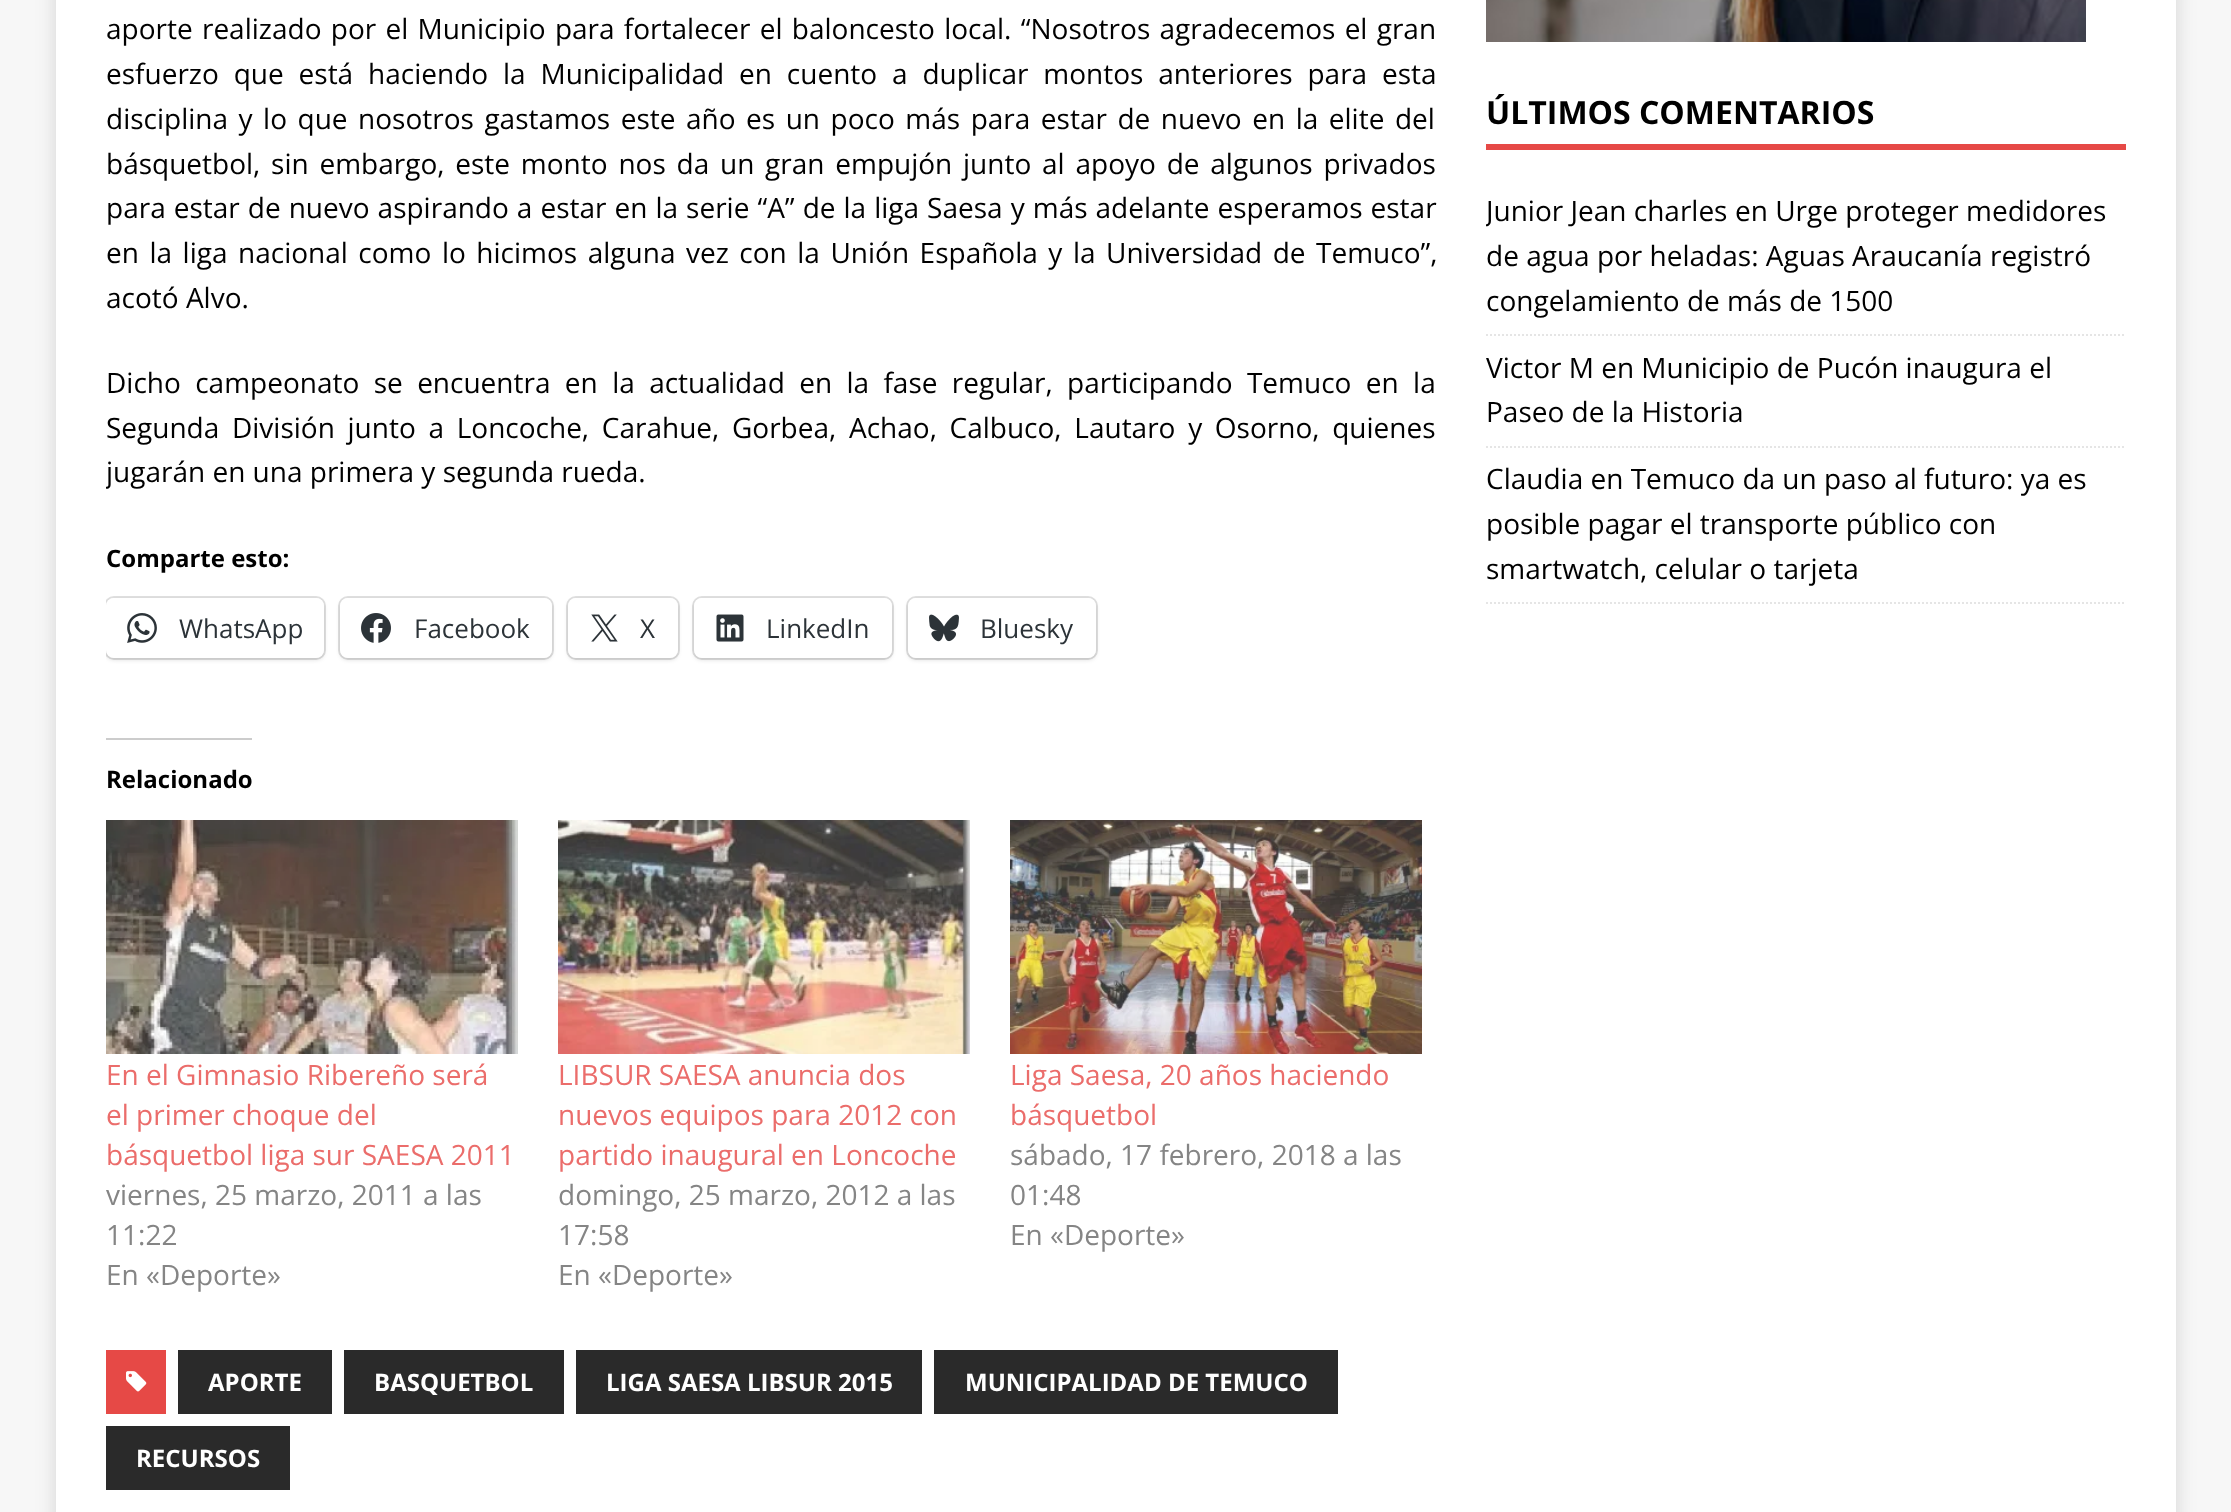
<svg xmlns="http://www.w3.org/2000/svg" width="2231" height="1512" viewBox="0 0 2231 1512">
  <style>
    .t1 { font: 28px Open Sans; fill: #000; }
    .t2 { font: bold 24px Open Sans; fill: #000; }
    .t3 { font: 26px Open Sans; fill: #2c3338; }
    .t4 { font: 28px Open Sans; fill: #eb6d6b; }
    .t5 { font: 28px Open Sans; fill: #858585; }
    .t6 { font: bold 24px Open Sans; fill: #fff; }
    .t7 { font: bold 32px Open Sans; fill: #000; }
  </style>
  <defs>
    <clipPath id="clip1"><rect x="106" y="0" width="1330" height="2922"/></clipPath>
    <clipPath id="clip2"><rect x="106" y="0" width="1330" height="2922"/></clipPath>
    <clipPath id="clip3"><rect x="1486" y="92" width="640" height="512"/></clipPath>
  </defs>
  <rect width="100%" height="100%" fill="#f7f7f7"/>
  <rect x="56" y="-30" width="2120" height="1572" fill="#3232322b" filter="blur(10px)"/>
  <rect x="56" y="0" width="2120" height="1512" fill="#fff"/>
  <text x="106" y="39" word-spacing="2" class="t1">aporte realizado por el Municipio para fortalecer el baloncesto local. “Nosotros agradecemos el gran</text>
  <text x="106" y="84" word-spacing="7.6" class="t1">esfuerzo que está haciendo la Municipalidad en cuento a duplicar montos anteriores para esta</text>
  <text x="106" y="129" word-spacing="3.25" class="t1">disciplina y lo que nosotros gastamos este año es un poco más para estar de nuevo en la elite del</text>
  <text x="106" y="174" word-spacing="3.5" class="t1">básquetbol, sin embargo, este monto nos da un gran empujón junto al apoyo de algunos privados</text>
  <text x="106" y="218" word-spacing="0.75" class="t1">para estar de nuevo aspirando a estar en la serie “A” de la liga Saesa y más adelante esperamos estar</text>
  <text x="106" y="263" word-spacing="3.25" class="t1">en la liga nacional como lo hicimos alguna vez con la Unión Española y la Universidad de Temuco”,</text>
  <text x="106" y="308" class="t1">acotó Alvo.</text>
  <text x="106" y="393" word-spacing="7.1" class="t1">Dicho campeonato se encuentra en la actualidad en la fase regular, participando Temuco en la</text>
  <text x="106" y="438" word-spacing="5.4" class="t1">Segunda División junto a Loncoche, Carahue, Gorbea, Achao, Calbuco, Lautaro y Osorno, quienes</text>
  <g clip-path="url(#clip1)">
    <text x="106" y="482" class="t1">jugarán en una primera y segunda rueda.</text>
  </g>
  <text x="106" y="567" class="t2">Comparte esto:</text>
  <g clip-path="url(#clip1)">
    <rect x="105" y="597" width="220" height="62" rx="9" fill="none" stroke="#e0e0e0" stroke-width="2"/>
  </g>
  <g clip-path="url(#clip2)">
    <rect x="106" y="600" width="218" height="60" rx="8" fill="#0000001f" filter="blur(2px)"/>
  </g>
  <rect x="106" y="598" width="218" height="60" rx="8" fill="#fff"/>
  <image x="127" y="613" width="30" height="30" href="images/1.png"/>
  <text x="179" y="638" class="t3">WhatsApp</text>
  <rect x="339" y="597" width="214" height="62" rx="9" fill="none" stroke="#e0e0e0" stroke-width="2"/>
  <rect x="340" y="600" width="212" height="60" rx="8" fill="#0000001f" filter="blur(2px)"/>
  <rect x="340" y="598" width="212" height="60" rx="8" fill="#fff"/>
  <image x="361" y="613" width="30" height="30" href="images/2.png"/>
  <text x="414" y="638" class="t3">Facebook</text>
  <rect x="567" y="597" width="112" height="62" rx="9" fill="none" stroke="#e0e0e0" stroke-width="2"/>
  <rect x="568" y="600" width="110" height="60" rx="8" fill="#0000001f" filter="blur(2px)"/>
  <rect x="568" y="598" width="110" height="60" rx="8" fill="#fff"/>
  <image x="591" y="614" width="27" height="28" href="images/3.png"/>
  <text x="640" y="638" class="t3">X</text>
  <rect x="693" y="597" width="200" height="62" rx="9" fill="none" stroke="#e0e0e0" stroke-width="2"/>
  <rect x="694" y="600" width="198" height="60" rx="8" fill="#0000001f" filter="blur(2px)"/>
  <rect x="694" y="598" width="198" height="60" rx="8" fill="#fff"/>
  <image x="716" y="614" width="28" height="28" href="images/4.png"/>
  <text x="766" y="638" class="t3">LinkedIn</text>
  <rect x="907" y="597" width="190" height="62" rx="9" fill="none" stroke="#e0e0e0" stroke-width="2"/>
  <rect x="908" y="600" width="188" height="60" rx="8" fill="#0000001f" filter="blur(2px)"/>
  <rect x="908" y="598" width="188" height="60" rx="8" fill="#fff"/>
  <image x="929" y="614" width="30" height="28" href="images/5.png"/>
  <text x="980" y="638" class="t3">Bluesky</text>
  <rect x="106" y="738" width="146" height="2" fill="#ccc"/>
  <text x="106" y="788" class="t2">Relacionado</text>
  <image x="106" y="820" width="412" height="234" href="images/6.png"/>
  <text x="106" y="1085" class="t4">En el Gimnasio Ribereño será</text>
  <text x="106" y="1125" class="t4">el primer choque del</text>
  <text x="106" y="1165" class="t4">básquetbol liga sur SAESA 2011</text>
  <text x="106" y="1205" class="t5">viernes, 25 marzo, 2011 a las</text>
  <text x="106" y="1245" class="t5">11:22</text>
  <text x="106" y="1285" class="t5">En «Deporte»</text>
  <image x="558" y="820" width="412" height="234" href="images/7.png"/>
  <text x="558" y="1085" class="t4">LIBSUR SAESA anuncia dos</text>
  <text x="558" y="1125" class="t4">nuevos equipos para 2012 con</text>
  <text x="558" y="1165" class="t4">partido inaugural en Loncoche</text>
  <text x="558" y="1205" class="t5">domingo, 25 marzo, 2012 a las</text>
  <text x="558" y="1245" class="t5">17:58</text>
  <text x="558" y="1285" class="t5">En «Deporte»</text>
  <image x="1010" y="820" width="412" height="234" href="images/8.png"/>
  <text x="1010" y="1085" class="t4">Liga Saesa, 20 años haciendo</text>
  <text x="1010" y="1125" class="t4">básquetbol</text>
  <text x="1010" y="1165" class="t5">sábado, 17 febrero, 2018 a las</text>
  <text x="1010" y="1205" class="t5">01:48</text>
  <text x="1010" y="1245" class="t5">En «Deporte»</text>
  <rect x="106" y="1350" width="60" height="64" fill="#e64946"/>
  <image x="126" y="1371" width="21" height="21" href="images/9.png"/>
  <rect x="178" y="1350" width="154" height="64" fill="#2a2a2a"/>
  <text x="208" y="1391" class="t6">APORTE</text>
  <rect x="344" y="1350" width="220" height="64" fill="#2a2a2a"/>
  <text x="374" y="1391" class="t6">BASQUETBOL</text>
  <rect x="576" y="1350" width="346" height="64" fill="#2a2a2a"/>
  <text x="606" y="1391" class="t6">LIGA SAESA LIBSUR 2015</text>
  <rect x="934" y="1350" width="404" height="64" fill="#2a2a2a"/>
  <text x="965" y="1391" class="t6">MUNICIPALIDAD DE TEMUCO</text>
  <rect x="106" y="1426" width="184" height="64" fill="#2a2a2a"/>
  <text x="136" y="1467" class="t6">RECURSOS</text>
  <image x="1486" y="0" width="600" height="42" href="images/10.png"/>
  <rect x="1486" y="144" width="640" height="6" fill="#e64946"/>
  <text x="1486" y="124" class="t7">ÚLTIMOS COMENTARIOS</text>
  <path d="M1486 335H2126" fill="none" stroke="#e5e5e5" stroke-width="2" stroke-dasharray="2 2"/>
  <g clip-path="url(#clip3)">
    <text x="1486" y="221" class="t1">Junior Jean charles</text>
  </g>
  <text x="1735" y="221" class="t1">en Urge proteger medidores</text>
  <text x="1486" y="266" class="t1">de agua por heladas: Aguas Araucanía registró</text>
  <text x="1486" y="311" class="t1">congelamiento de más de 1500</text>
  <path d="M1486 447H2126" fill="none" stroke="#e5e5e5" stroke-width="2" stroke-dasharray="2 2"/>
  <text x="1486" y="378" class="t1">Victor M en Municipio de Pucón inaugura el</text>
  <text x="1486" y="422" class="t1">Paseo de la Historia</text>
  <path d="M1486 603H2126" fill="none" stroke="#e5e5e5" stroke-width="2" stroke-dasharray="2 2"/>
  <text x="1486" y="489" class="t1">Claudia en Temuco da un paso al futuro: ya es</text>
  <text x="1486" y="534" class="t1">posible pagar el transporte público con</text>
  <text x="1486" y="579" class="t1">smartwatch, celular o tarjeta</text>
</svg>
